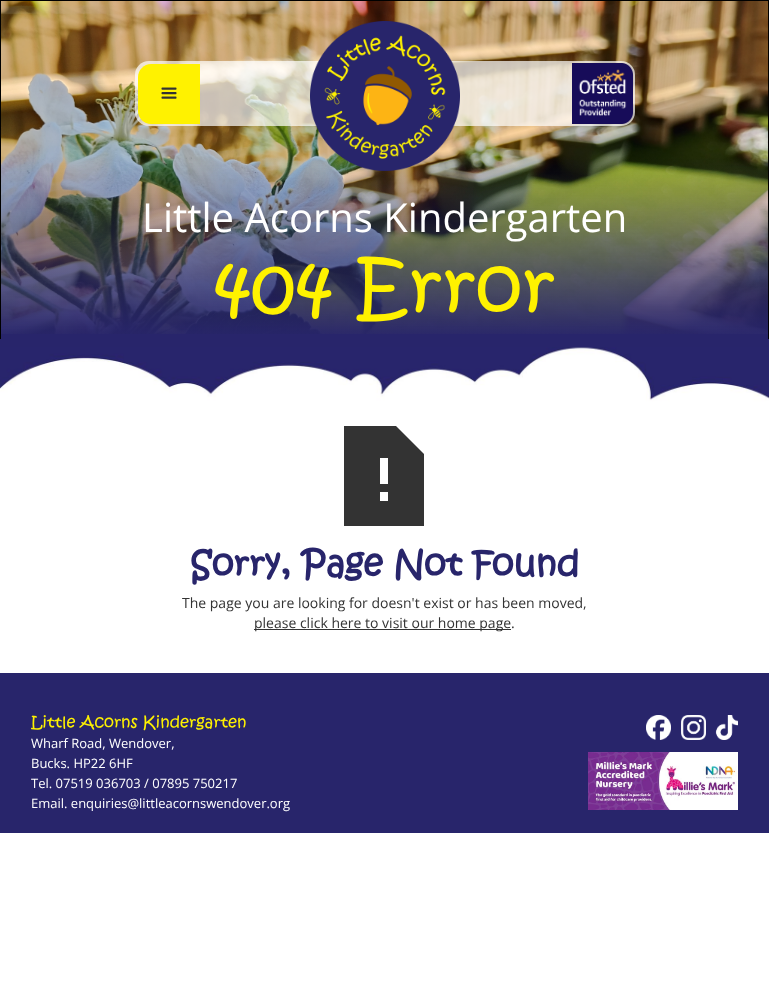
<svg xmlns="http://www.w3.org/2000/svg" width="769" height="1000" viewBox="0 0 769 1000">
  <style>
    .t1 { font: 40px Open Sans; fill: #fff; }
    .t2 { font: 75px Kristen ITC; fill: #fff200; }
    .t3 { font: bold 35px Kristen ITC; fill: #28256b; }
    .t4 { font: 14px Open Sans; fill: #333; }
    .t5 { font: 16px Kristen ITC; fill: #fff200; }
    .t6 { font: 13px Open Sans; fill: #fff; }
  </style>
  <rect width="100%" height="100%" fill="#fff"/>
  <rect x="1" y="334" width="767" height="5" fill="#28256b"/>
  <image x="1" y="1" width="767" height="333" href="images/1.png"/>
  <rect x="0" y="0" width="769" height="1" fill="#000"/>
  <rect x="768" y="0" width="1" height="339" fill="#000"/>
  <rect x="0" y="0" width="1" height="339" fill="#000"/>
  <rect x="135" y="61" width="500" height="65" rx="14" fill="#ffffffb3"/>
  <image x="310" y="21" width="150" height="150" href="images/2.png"/>
  <path d="M151 64H200V124H151C144 124 138 118 138 111V77C138 70 144 64 151 64Z" fill="#fff200"/>
  <image x="161" y="87" width="16" height="12" href="images/3.png"/>
  <image x="572" y="63" width="61" height="61" href="images/4.png"/>
  <text x="142" y="232" class="t1">Little Acorns Kindergarten</text>
  <text x="214" y="315" class="t2">404 Error</text>
  <rect x="0" y="339" width="769" height="8" fill="#28256b"/>
  <image x="0" y="347" width="769" height="59" href="images/5.png"/>
  <path d="M344 426H396L424 454V526H344ZM380 458H388V484H380ZM380 492H388V501H380Z" fill="#333" fill-rule="evenodd"/>
  <text x="190" y="577" class="t3">Sorry, Page Not Found</text>
  <text x="182" y="608" class="t4">The page you are looking for doesn't exist or has been moved,</text>
  <rect x="254" y="629" width="257" height="1" fill="#333"/>
  <text x="254" y="628" class="t4">please click here to visit our home page.</text>
  <rect x="0" y="673" width="769" height="160" fill="#28256b"/>
  <text x="31" y="728" class="t5">Little Acorns Kindergarten</text>
  <text x="31" y="748" class="t6">Wharf Road, Wendover,</text>
  <text x="31" y="768" class="t6">Bucks. HP22 6HF</text>
  <text x="31" y="788" class="t6">Tel. 07519 036703 / 07895 750217</text>
  <text x="31" y="808" class="t6">Email. enquiries@littleacornswendover.org</text>
  <image x="646" y="715" width="25" height="25" href="images/6.png"/>
  <image x="681" y="715" width="25" height="25" href="images/7.png"/>
  <image x="715" y="715" width="23" height="25" href="images/8.png"/>
  <image x="588" y="752" width="150" height="58" href="images/9.png"/>
</svg>
